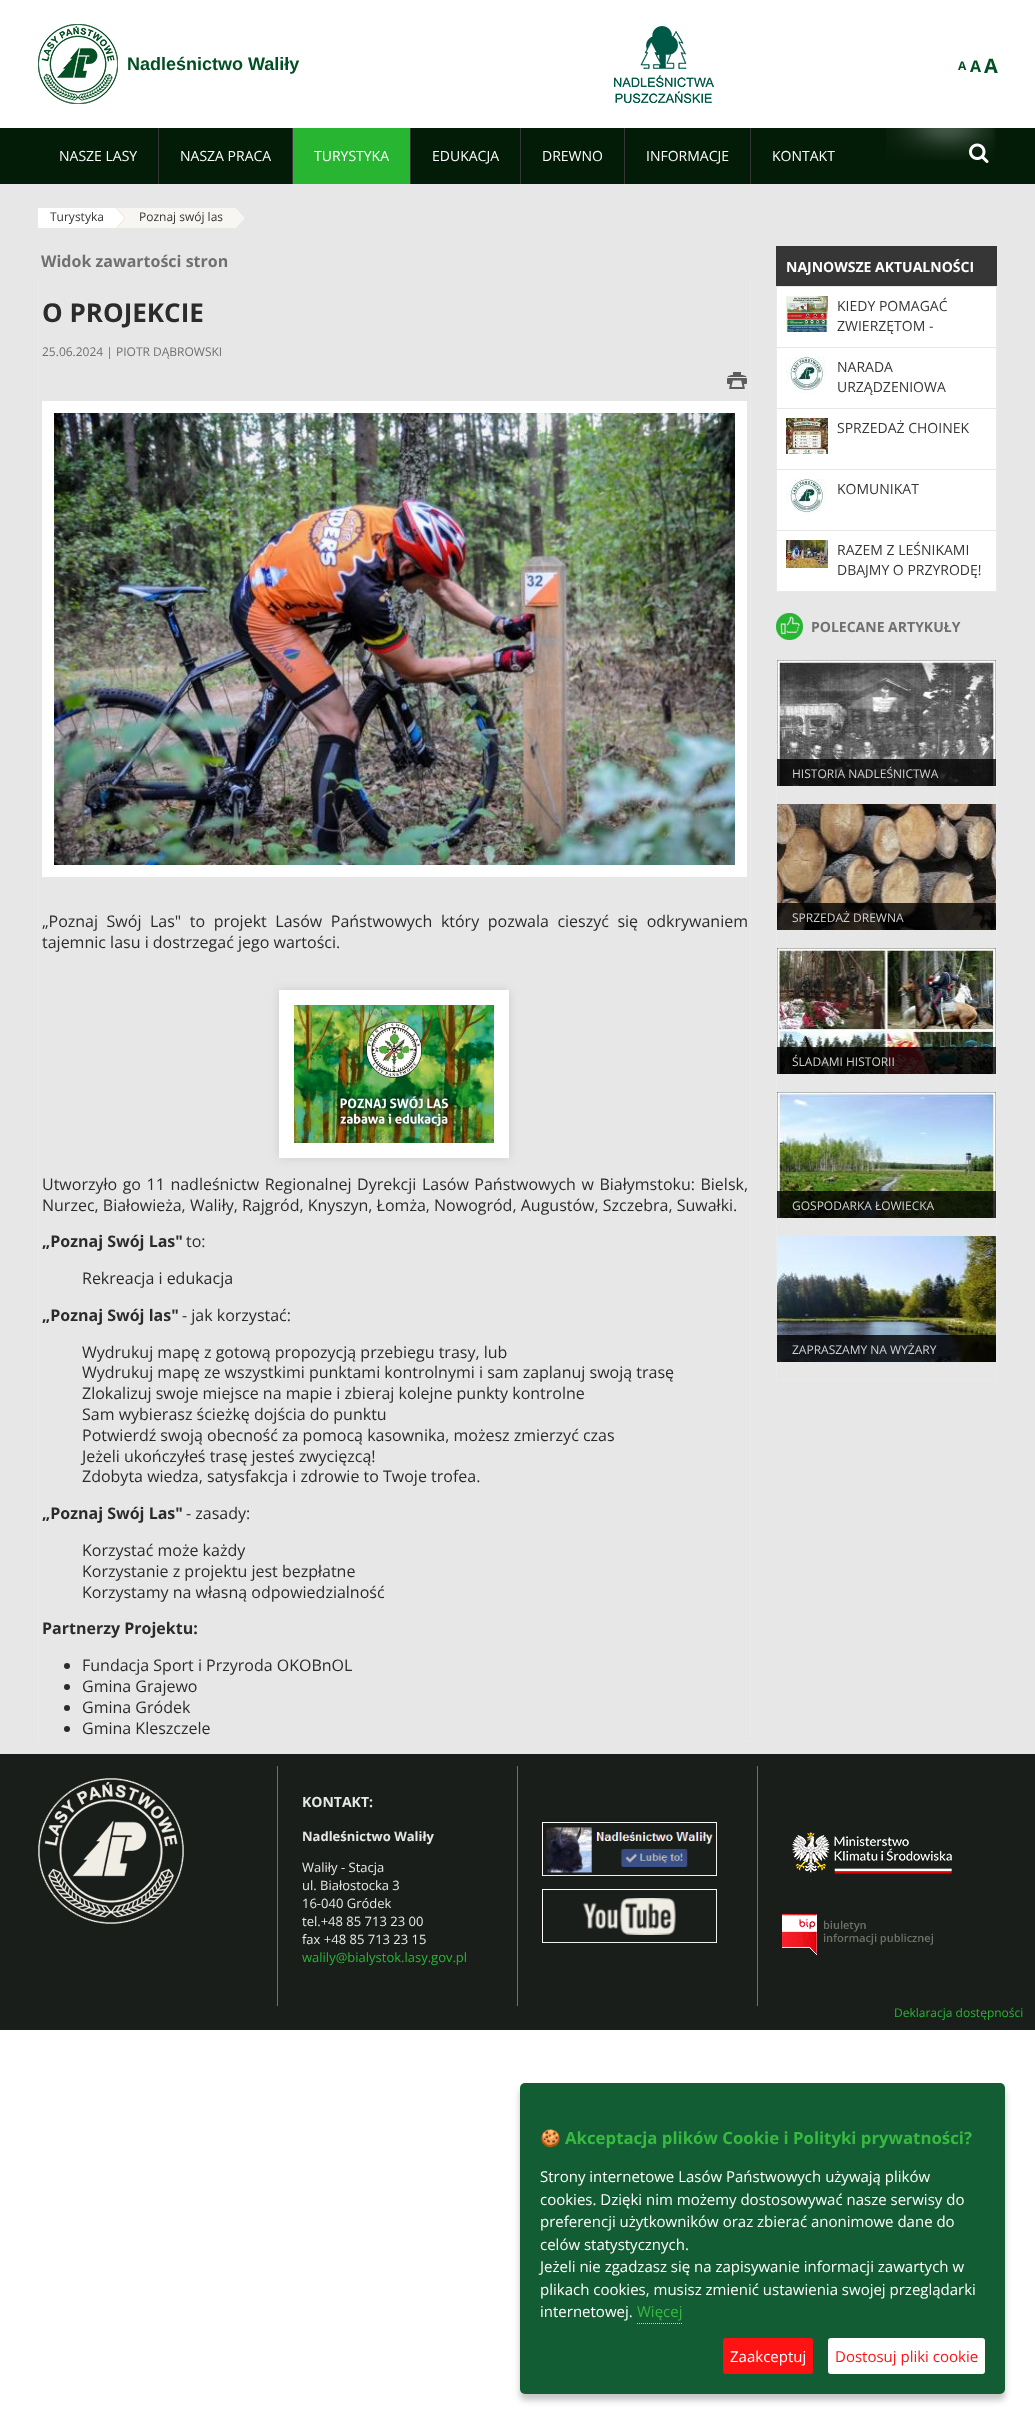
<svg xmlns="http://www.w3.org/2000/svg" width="1035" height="2424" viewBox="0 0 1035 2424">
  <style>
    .t1 { font: bold 18px Liberation Sans; fill: #005023; }
    .t2 { font: bold 12px Open Sans; fill: #005023; }
    .t3 { font: bold 16px Open Sans; fill: #005023; }
    .t4 { font: bold 20px Open Sans; fill: #005023; }
    .t5 { font: 14px Open Sans; fill: #fff; }
    .t6 { font: 12px Open Sans; fill: #363636; }
    .t7 { font: bold 16px Open Sans; fill: #707070; }
    .t8 { font: bold 26px Open Sans; fill: #2b2b2b; }
    .t9 { font: 12px Open Sans; fill: #707070; }
    .t10 { font: 16px Open Sans; fill: #2b2b2b; }
    .t11 { font: bold 16px Open Sans; fill: #2b2b2b; }
    .t12 { font: bold 14px Open Sans; fill: #fff; }
    .t13 { font: 14px Open Sans; fill: #363636; }
    .t14 { font: bold 14px Open Sans; fill: #707070; }
    .t15 { font: 12px Open Sans; fill: #d1d1d1; }
    .t16 { font: bold 14px Open Sans; fill: #e7e7e7; }
    .t17 { font: bold 13px Open Sans; fill: #e7e7e7; }
    .t18 { font: 13px Open Sans; fill: #e7e7e7; }
    .t19 { font: 13px Open Sans; fill: #28b532; }
    .t20 { font: 12px Open Sans; fill: #28b532; }
    .t21 { font: bold 16.8px Noto Color Emoji; fill: #38ba41; }
    .t22 { font: bold 16.8px Open Sans; fill: #38ba41; }
    .t23 { font: 15px Open Sans; fill: #fff; }
    .t24 { font: 15px Open Sans; fill: #38ba41; }
    .t25 { font: 15px Open Sans; fill: #ff1212; }
  </style>
  <rect width="100%" height="100%" fill="#fff"/>
  <image x="38" y="24" width="80" height="80" href="images/1.png"/>
  <text x="127" y="70" class="t1">Nadleśnictwo Waliły</text>
  <image x="614" y="26" width="100" height="77" href="images/2.png"/>
  <text x="958" y="70" class="t2">A</text>
  <text x="970" y="72" class="t3">A</text>
  <text x="984" y="73" class="t4">A</text>
  <rect x="0" y="128" width="1035" height="56" fill="#031c07"/>
  <image x="886" y="128" width="110" height="32" href="images/3.png"/>
  <rect x="158" y="128" width="1" height="56" fill="#363636"/>
  <text x="59" y="161" class="t5">NASZE LASY</text>
  <rect x="292" y="128" width="1" height="56" fill="#363636"/>
  <text x="180" y="161" class="t5">NASZA PRACA</text>
  <rect x="410" y="128" width="1" height="56" fill="#363636"/>
  <rect x="293" y="128" width="117" height="56" fill="#28b532"/>
  <text x="314" y="161" class="t5">TURYSTYKA</text>
  <rect x="520" y="128" width="1" height="56" fill="#363636"/>
  <text x="432" y="161" class="t5">EDUKACJA</text>
  <rect x="624" y="128" width="1" height="56" fill="#363636"/>
  <text x="542" y="161" class="t5">DREWNO</text>
  <rect x="750" y="128" width="1" height="56" fill="#363636"/>
  <text x="646" y="161" class="t5">INFORMACJE</text>
  <text x="772" y="161" class="t5">KONTAKT</text>
  <image x="969" y="143" width="20" height="20" href="images/4.png"/>
  <rect x="0" y="184" width="1035" height="1570" fill="#e7e7e7"/>
  <rect x="38" y="208" width="77" height="20" fill="#fff"/>
  <text x="50" y="221" class="t6">Turystyka</text>
  <rect x="115" y="208" width="120" height="20" fill="#f8f6f2"/>
  <image x="115" y="208" width="10" height="20" href="images/5.png"/>
  <text x="139" y="221" class="t6">Poznaj swój las</text>
  <image x="235" y="208" width="10" height="20" href="images/6.png"/>
  <text x="41" y="267" class="t7">Widok zawartości stron</text>
  <rect x="750" y="276" width="1" height="1466" fill="#eaeaea"/>
  <rect x="38" y="1741" width="713" height="1" fill="#eaeaea"/>
  <rect x="38" y="276" width="1" height="1466" fill="#eaeaea"/>
  <text x="42" y="322" class="t8">O PROJEKCIE</text>
  <text x="42" y="356" class="t9">25.06.2024 | PIOTR DĄBROWSKI</text>
  <image x="727" y="372" width="20" height="17" href="images/7.png"/>
  <rect x="48" y="407" width="693" height="464" fill="none" stroke="#fff" stroke-width="12"/>
  <image x="54" y="413" width="681" height="452" href="images/8.png"/>
  <text x="42" y="927" word-spacing="4.4" class="t10">„Poznaj Swój Las" to projekt Lasów Państwowych który pozwala cieszyć się odkrywaniem</text>
  <text x="42" y="948" class="t10">tajemnic lasu i dostrzegać jego wartości.</text>
  <rect x="279" y="990" width="230" height="168" fill="#ccc" filter="blur(5px)"/>
  <rect x="286.5" y="997.5" width="215" height="153" fill="none" stroke="#fff" stroke-width="15"/>
  <image x="294" y="1005" width="200" height="138" href="images/9.png"/>
  <text x="42" y="1190" word-spacing="1.4" class="t10">Utworzyło go 11 nadleśnictw Regionalnej Dyrekcji Lasów Państwowych w Białymstoku: Bielsk,</text>
  <text x="42" y="1211" class="t10">Nurzec, Białowieża, Waliły, Rajgród, Knyszyn, Łomża, Nowogród, Augustów, Szczebra, Suwałki.</text>
  <text x="42" y="1247" class="t11">„Poznaj Swój Las"</text>
  <text x="186" y="1247" class="t10">to:</text>
  <text x="82" y="1284" class="t10">Rekreacja i edukacja</text>
  <text x="42" y="1321" class="t11">„Poznaj Swój las"</text>
  <text x="182" y="1321" class="t10">- jak korzystać:</text>
  <text x="82" y="1358" class="t10">Wydrukuj mapę z gotową propozycją przebiegu trasy, lub</text>
  <text x="82" y="1378" class="t10">Wydrukuj mapę ze wszystkimi punktami kontrolnymi i sam zaplanuj swoją trasę</text>
  <text x="82" y="1399" class="t10">Zlokalizuj swoje miejsce na mapie i zbieraj kolejne punkty kontrolne</text>
  <text x="82" y="1420" class="t10">Sam wybierasz ścieżkę dojścia do punktu</text>
  <text x="82" y="1441" class="t10">Potwierdź swoją obecność za pomocą kasownika, możesz zmierzyć czas</text>
  <text x="82" y="1462" class="t10">Jeżeli ukończyłeś trasę jesteś zwycięzcą!</text>
  <text x="82" y="1482" class="t10">Zdobyta wiedza, satysfakcja i zdrowie to Twoje trofea.</text>
  <text x="42" y="1519" class="t11">„Poznaj Swój Las"</text>
  <text x="186" y="1519" class="t10">- zasady:</text>
  <text x="82" y="1556" class="t10">Korzystać może każdy</text>
  <text x="82" y="1577" class="t10">Korzystanie z projektu jest bezpłatne</text>
  <text x="82" y="1598" class="t10">Korzystamy na własną odpowiedzialność</text>
  <text x="42" y="1634" class="t11">Partnerzy Projektu:</text>
  <circle cx="67" cy="1666" r="3" fill="#2b2b2b"/>
  <text x="82" y="1671" class="t10">Fundacja Sport i Przyroda OKOBnOL</text>
  <circle cx="67" cy="1687" r="3" fill="#2b2b2b"/>
  <text x="82" y="1692" class="t10">Gmina Grajewo</text>
  <circle cx="67" cy="1708" r="3" fill="#2b2b2b"/>
  <text x="82" y="1713" class="t10">Gmina Gródek</text>
  <circle cx="67" cy="1729" r="3" fill="#2b2b2b"/>
  <text x="82" y="1734" class="t10">Gmina Kleszczele</text>
  <rect x="776" y="246" width="221" height="40" fill="#363636"/>
  <text x="786" y="272" class="t12">NAJNOWSZE AKTUALNOŚCI</text>
  <rect x="996" y="286" width="1" height="306" fill="#eaeaea"/>
  <rect x="776" y="591" width="221" height="1" fill="#eaeaea"/>
  <rect x="776" y="286" width="1" height="306" fill="#eaeaea"/>
  <rect x="777" y="287" width="219" height="60" fill="#fff"/>
  <image x="786" y="296" width="42" height="36" href="images/10.png"/>
  <text x="837" y="311" class="t13">KIEDY POMAGAĆ</text>
  <text x="837" y="331" class="t13">ZWIERZĘTOM -</text>
  <rect x="777" y="348" width="219" height="60" fill="#fff"/>
  <image x="786" y="357" width="40" height="36" href="images/11.png"/>
  <text x="837" y="372" class="t13">NARADA</text>
  <text x="837" y="392" class="t13">URZĄDZENIOWA</text>
  <rect x="777" y="409" width="219" height="60" fill="#fff"/>
  <image x="786" y="418" width="42" height="36" href="images/12.png"/>
  <text x="837" y="433" class="t13">SPRZEDAŻ CHOINEK</text>
  <rect x="777" y="470" width="219" height="60" fill="#fff"/>
  <image x="786" y="479" width="40" height="36" href="images/11.png"/>
  <text x="837" y="494" class="t13">KOMUNIKAT</text>
  <rect x="777" y="531" width="219" height="60" fill="#fff"/>
  <image x="786" y="540" width="42" height="28" href="images/13.png"/>
  <text x="837" y="555" class="t13">RAZEM Z LEŚNIKAMI</text>
  <text x="837" y="575" class="t13">DBAJMY O PRZYRODĘ!</text>
  <image x="776" y="613" width="27" height="27" href="images/14.png"/>
  <text x="811" y="632" class="t14">POLECANE ARTYKUŁY</text>
  <rect x="996" y="660" width="1" height="721" fill="#eaeaea"/>
  <rect x="776" y="1380" width="221" height="1" fill="#eaeaea"/>
  <rect x="776" y="660" width="1" height="721" fill="#eaeaea"/>
  <image x="777" y="660" width="219" height="126" href="images/15.png"/>
  <rect x="777" y="759" width="219" height="27" fill="#000000cc"/>
  <text x="792" y="778" class="t15">HISTORIA NADLEŚNICTWA</text>
  <image x="777" y="804" width="219" height="126" href="images/16.png"/>
  <rect x="777" y="903" width="219" height="27" fill="#000000cc"/>
  <text x="792" y="922" class="t15">SPRZEDAŻ DREWNA</text>
  <image x="777" y="948" width="219" height="126" href="images/17.png"/>
  <rect x="777" y="1047" width="219" height="27" fill="#000000cc"/>
  <text x="792" y="1066" class="t15">ŚLADAMI HISTORII</text>
  <image x="777" y="1092" width="219" height="126" href="images/18.png"/>
  <rect x="777" y="1191" width="219" height="27" fill="#000000cc"/>
  <text x="792" y="1210" class="t15">GOSPODARKA ŁOWIECKA</text>
  <image x="777" y="1236" width="219" height="126" href="images/19.png"/>
  <rect x="777" y="1335" width="219" height="27" fill="#000000cc"/>
  <text x="792" y="1354" class="t15">ZAPRASZAMY NA WYŻARY</text>
  <rect x="0" y="1754" width="1035" height="276" fill="#1a1e1b"/>
  <rect x="277" y="1766" width="1" height="240" fill="#707070"/>
  <image x="38" y="1778" width="146" height="146" href="images/20.png"/>
  <rect x="517" y="1766" width="1" height="240" fill="#707070"/>
  <text x="302" y="1807" class="t16">KONTAKT:</text>
  <text x="302" y="1841" class="t17">Nadleśnictwo Waliły</text>
  <text x="302" y="1872" class="t18">Waliły - Stacja</text>
  <text x="302" y="1890" class="t18">ul. Białostocka 3</text>
  <text x="302" y="1908" class="t18">16-040 Gródek</text>
  <text x="302" y="1926" class="t18">tel.+48 85 713 23 00</text>
  <text x="302" y="1944" class="t18">fax +48 85 713 23 15</text>
  <text x="302" y="1962" class="t19">walily@bialystok.lasy.gov.pl</text>
  <rect x="757" y="1766" width="1" height="240" fill="#707070"/>
  <image x="542" y="1822" width="175" height="54" href="images/21.png"/>
  <image x="542" y="1889" width="175" height="54" href="images/22.png"/>
  <image x="792" y="1832" width="160" height="42" href="images/23.png"/>
  <image x="782" y="1914" width="151" height="41" href="images/24.png"/>
  <text x="894" y="2017" class="t20">Deklaracja dostępności</text>
  <rect x="520" y="2089" width="485" height="311" rx="5" fill="#12121240" filter="blur(3px)"/>
  <rect x="520" y="2083" width="485" height="311" rx="5" fill="#125d33"/>
  <text x="540" y="2144" class="t21">🍪</text>
  <text x="565" y="2144" class="t22">Akceptacja plików Cookie i Polityki prywatności?</text>
  <text x="540" y="2182" class="t23">Strony internetowe Lasów Państwowych używają plików</text>
  <text x="540" y="2205" class="t23">cookies. Dzięki nim możemy dostosowywać nasze serwisy do</text>
  <text x="540" y="2227" class="t23">preferencji użytkowników oraz zbierać anonimowe dane do</text>
  <text x="540" y="2250" class="t23">celów statystycznych.</text>
  <text x="540" y="2272" class="t23">Jeżeli nie zgadzasz się na zapisywanie informacji zawartych w</text>
  <text x="540" y="2295" class="t23">plikach cookies, musisz zmienić ustawienia swojej przeglądarki</text>
  <text x="540" y="2317" class="t23">internetowej.</text>
  <text x="637" y="2317" class="t24">Więcej</text>
  <path d="M637 2323.5H682" fill="none" stroke="#c4d7cc" stroke-dasharray="1 1"/>
  <rect x="723" y="2338" width="90" height="36" rx="3" fill="#ff1212"/>
  <text x="730" y="2362" class="t23">Zaakceptuj</text>
  <rect x="828" y="2338" width="157" height="36" rx="3" fill="#fff"/>
  <text x="835" y="2362" class="t25">Dostosuj pliki cookie</text>
</svg>
